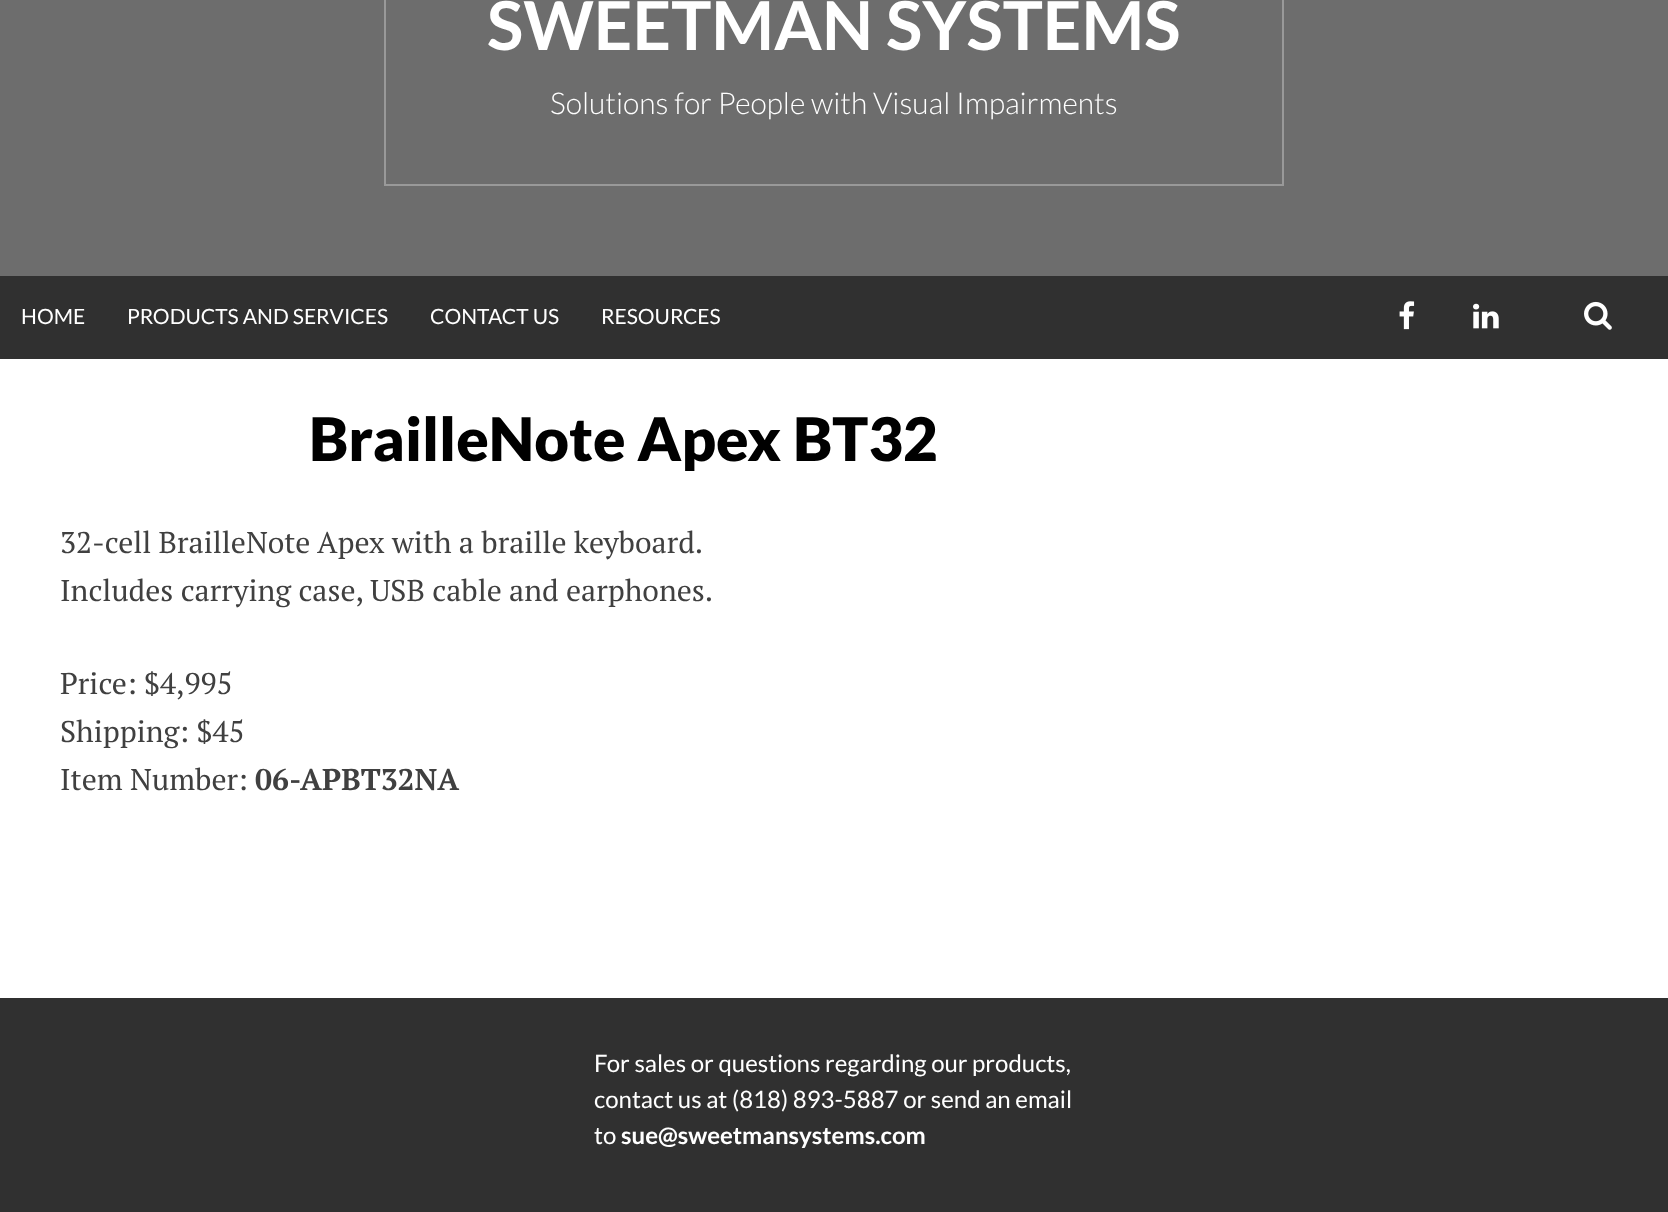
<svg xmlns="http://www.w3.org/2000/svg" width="1668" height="1212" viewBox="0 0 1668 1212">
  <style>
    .t1 { font: bold 67.5px Lato; fill: #fff; }
    .t2 { font: 300 30px Lato; fill: #fff; }
    .t3 { font: 21px Lato; fill: #fff; }
    .t4 { font: 900 60px Lato; fill: #000; }
    .t5 { font: 30px PT Serif; fill: #404040; }
    .t6 { font: bold 30px PT Serif; fill: #404040; }
    .t7 { font: 24px Lato; fill: #fff; }
    .t8 { font: bold 24px Lato; fill: #fff; }
  </style>
  <rect width="100%" height="100%" fill="#6d6d6d"/>
  <rect x="385" y="-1" width="898" height="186" fill="none" stroke="#999" stroke-width="2"/>
  <text x="487" y="50" class="t1">SWEETMAN SYSTEMS</text>
  <text x="550" y="114" class="t2">Solutions for People with Visual Impairments</text>
  <rect x="0" y="276" width="1668" height="83" fill="#303030"/>
  <text x="21" y="324" class="t3">HOME</text>
  <text x="127" y="324" class="t3">PRODUCTS AND SERVICES</text>
  <text x="430" y="324" class="t3">CONTACT US</text>
  <text x="601" y="324" class="t3">RESOURCES</text>
  <image x="1399" y="301" width="16" height="29" href="images/1.png"/>
  <image x="1473" y="303" width="26" height="26" href="images/2.png"/>
  <image x="1584" y="301" width="28" height="29" href="images/3.png"/>
  <rect x="0" y="359" width="1668" height="639" fill="#fff"/>
  <text x="309" y="461" class="t4">BrailleNote Apex BT32</text>
  <text x="60" y="553" class="t5">32-cell BrailleNote Apex with a braille keyboard.</text>
  <text x="60" y="601" class="t5">Includes carrying case, USB cable and earphones.</text>
  <text x="60" y="694" class="t5">Price: $4,995</text>
  <text x="60" y="742" class="t5">Shipping: $45</text>
  <text x="60" y="790" class="t5">Item Number:</text>
  <text x="255" y="790" class="t6">06-APBT32NA</text>
  <rect x="0" y="998" width="1668" height="214" fill="#303030"/>
  <text x="594" y="1072" class="t7">For sales or questions regarding our products,</text>
  <text x="594" y="1108" class="t7">contact us at (818) 893-5887 or send an email</text>
  <text x="594" y="1144" class="t7">to</text>
  <text x="621" y="1144" class="t8">sue@sweetmansystems.com</text>
</svg>
